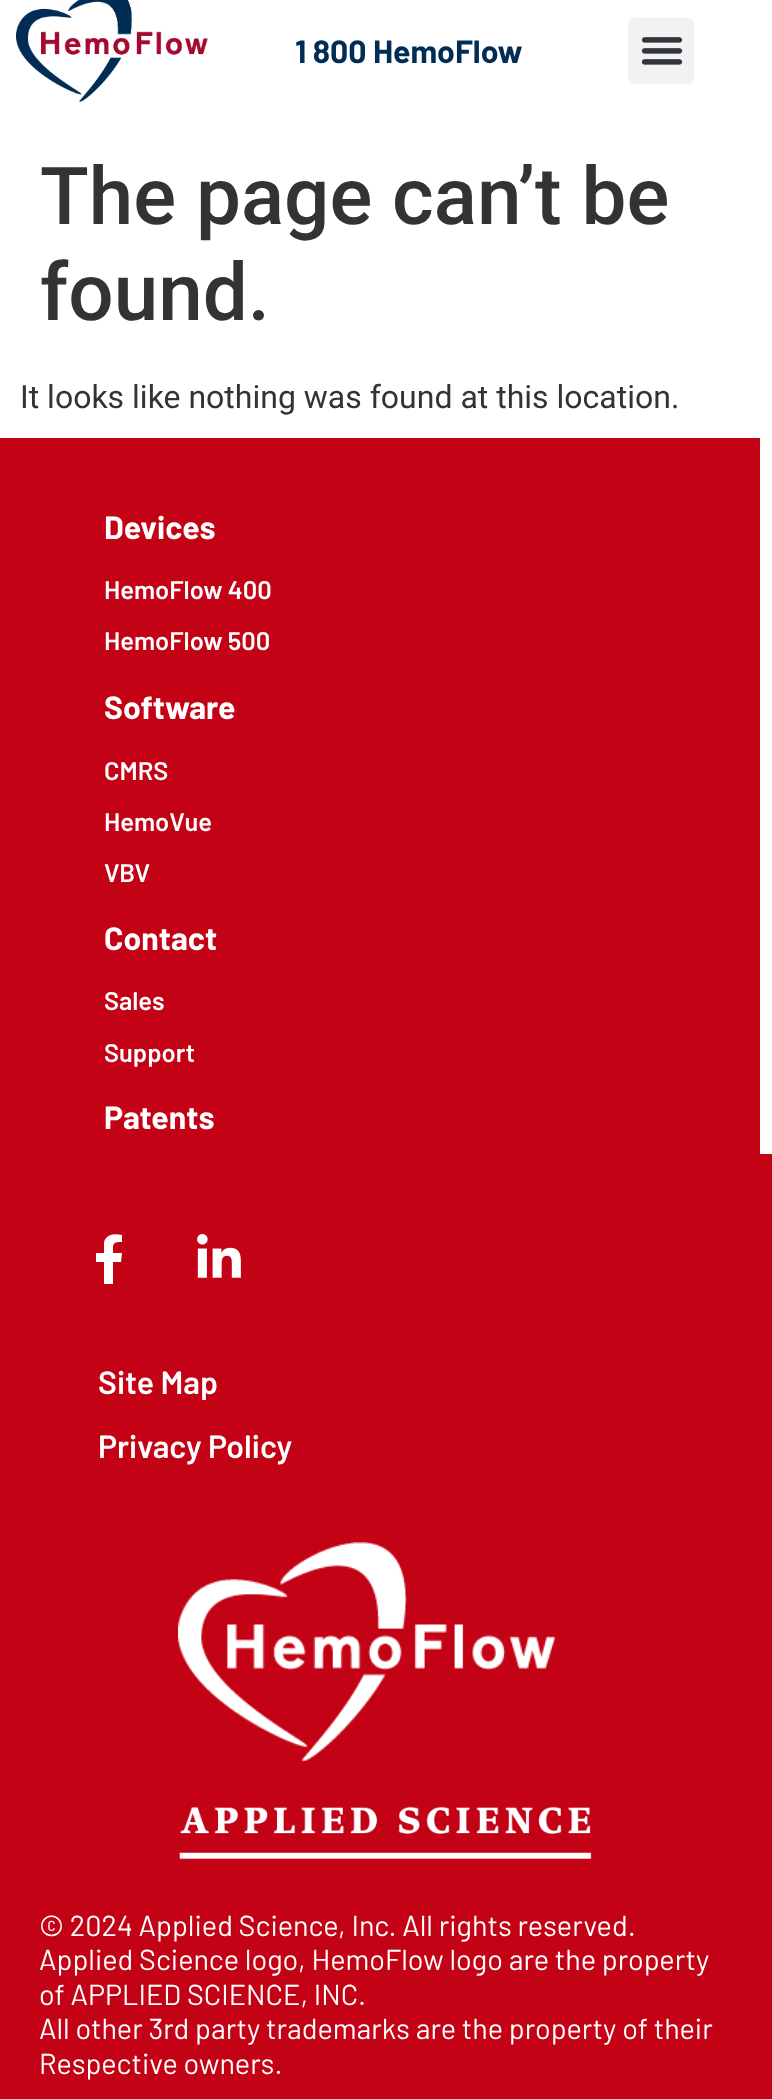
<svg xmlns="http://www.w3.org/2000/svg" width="772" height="2099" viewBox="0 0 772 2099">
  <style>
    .t1 { font: bold 32px Barlow; fill: #002c55; }
    .t2 { font: 500 80px Roboto; fill: #333; }
    .t3 { font: 32px Roboto; fill: #333; }
    .t4 { font: bold 32px Barlow; fill: #fff; }
    .t5 { font: 600 25.5px Barlow; fill: #fff; }
    .t6 { font: 600 32px Barlow; fill: #fff; }
    .t7 { font: 28.8px Barlow; fill: #fff; }
  </style>
  <rect width="100%" height="100%" fill="#fff"/>
  <image x="16" y="0" width="192" height="102" href="images/1.png"/>
  <text x="295" y="63" class="t1">1 800 HemoFlow</text>
  <rect x="628" y="18" width="66" height="66" rx="6" fill="#f2f2f2"/>
  <image x="641" y="37" width="42" height="28" href="images/2.png"/>
  <text x="40" y="224" class="t2">The page can’t be</text>
  <text x="40" y="320" class="t2">found.</text>
  <text x="20" y="408" class="t3">It looks like nothing was found at this location.</text>
  <rect x="0" y="438" width="760" height="716" fill="#c40215"/>
  <text x="104" y="539" class="t4">Devices</text>
  <text x="104" y="599" class="t5">HemoFlow 400</text>
  <text x="104" y="650" class="t5">HemoFlow 500</text>
  <text x="104" y="719" class="t4">Software</text>
  <text x="104" y="780" class="t5">CMRS</text>
  <text x="104" y="831" class="t5">HemoVue</text>
  <text x="104" y="882" class="t5">VBV</text>
  <text x="104" y="950" class="t4">Contact</text>
  <text x="104" y="1010" class="t5">Sales</text>
  <text x="104" y="1062" class="t5">Support</text>
  <text x="104" y="1129" class="t4">Patents</text>
  <rect x="0" y="1154" width="772" height="945" fill="#c40215"/>
  <path d="M121 1262L122 1253H113C113 1244 112 1242 122 1242V1235C115 1233 105 1234 104 1243V1253H96V1262H104V1284H113V1262Z" fill="#fff"/>
  <image x="197" y="1234" width="44" height="44" href="images/3.png"/>
  <text x="98" y="1394" class="t6">Site Map</text>
  <text x="98" y="1458" class="t6">Privacy Policy</text>
  <image x="178" y="1542" width="378" height="220" href="images/4.png"/>
  <image x="179" y="1806" width="413" height="53" href="images/5.png"/>
  <text x="39" y="1936" class="t7">© 2024 Applied Science, Inc. All rights reserved.</text>
  <text x="39" y="1970" class="t7">Applied Science logo, HemoFlow logo are the property</text>
  <text x="39" y="2005" class="t7">of APPLIED SCIENCE, INC.</text>
  <text x="39" y="2039" class="t7">All other 3rd party trademarks are the property of their</text>
  <text x="39" y="2074" class="t7">Respective owners.</text>
</svg>
